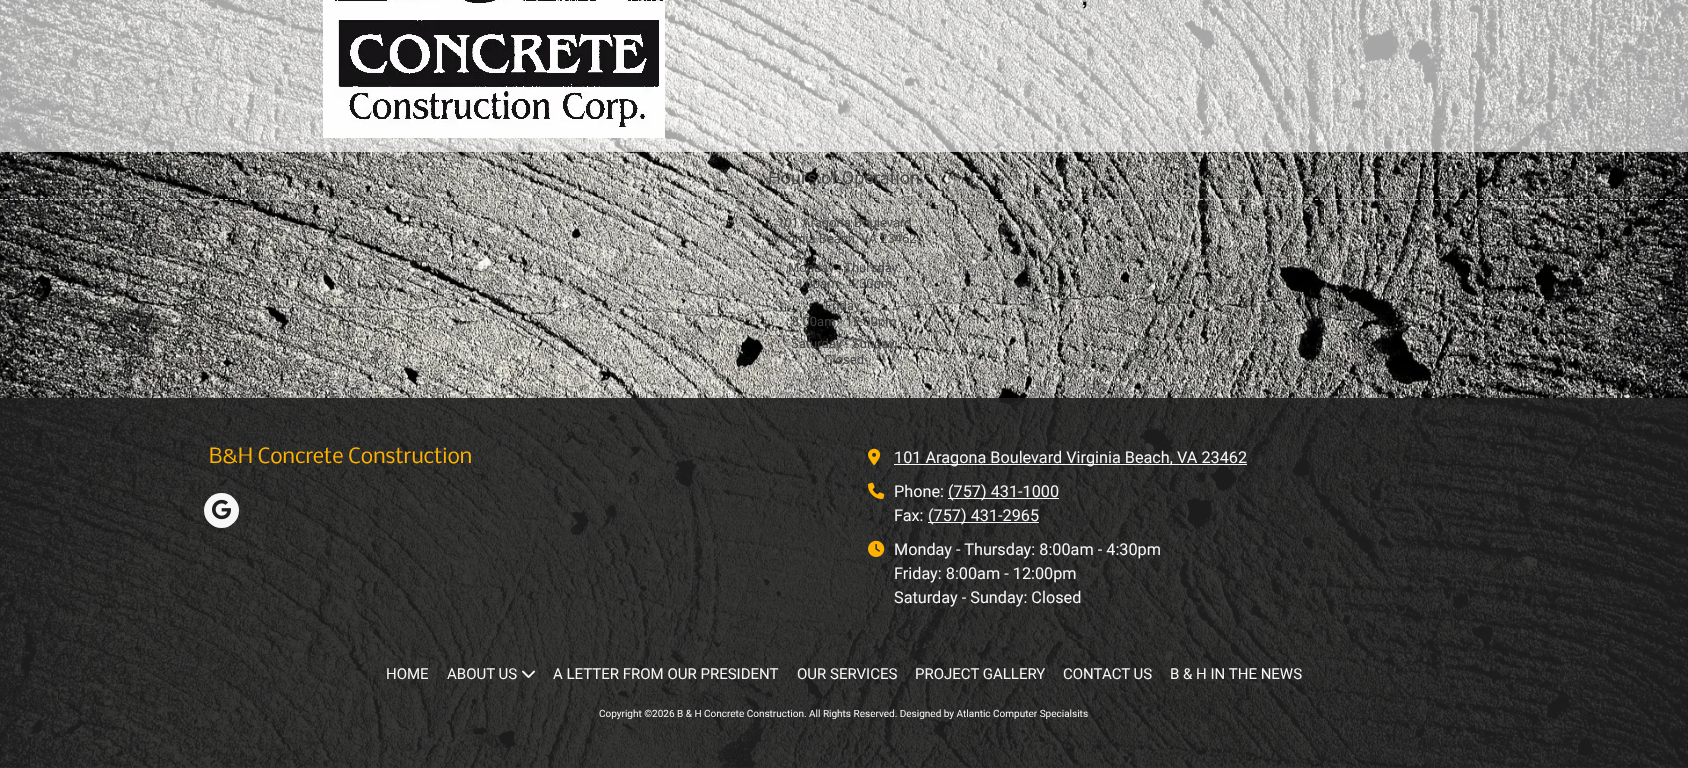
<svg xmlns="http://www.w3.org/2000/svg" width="1688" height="768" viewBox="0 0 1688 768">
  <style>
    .t1 { font: 28px Oswald; fill: #080708; }
    .t2 { font: 18px Roboto; fill: #444; }
    .t3 { font: 13px Roboto; fill: #444; }
    .t4 { font: 20px Nobile; fill: #ffb300; }
    .t5 { font: 16.25px Roboto; fill: #f7f7f7; }
    .t6 { font: 15px Roboto; fill: #f7f7f7; }
    .t7 { font: 10px Roboto; fill: #f7f7f7; }
  </style>
  <rect width="100%" height="100%" fill="#fff"/>
  <image x="0" y="0" width="1688" height="768" href="images/1.png"/>
  <rect x="0" y="0" width="1688" height="152" fill="#ffffffa6"/>
  <image x="323" y="0" width="342" height="138" href="images/2.png"/>
  <text x="1082" y="5" class="t1">,</text>
  <text x="768" y="184" class="t2">Hours of Operation</text>
  <path d="M0 199.5H1688" fill="none" stroke="#b7b7b7" stroke-dasharray="3 2"/>
  <text x="777" y="227" class="t3">101 Aragona Boulevard</text>
  <text x="772" y="243" class="t3">Virginia Beach, VA 23462</text>
  <text x="788" y="272" class="t3">Monday - Thursday:</text>
  <text x="795" y="288" class="t3">8:00am - 4:30pm</text>
  <text x="825" y="310" class="t3">Friday:</text>
  <text x="792" y="326" class="t3">8:00am - 12:00pm</text>
  <text x="791" y="348" class="t3">Saturday - Sunday:</text>
  <text x="824" y="364" class="t3">Closed</text>
  <rect x="0" y="398" width="1688" height="370" fill="#1f1f1fe3"/>
  <text x="209" y="463" class="t4">B&amp;H Concrete Construction</text>
  <circle cx="221.5" cy="510.5" r="17.5" fill="#f7f7f7"/>
  <image x="212" y="499" width="19" height="21" href="images/3.png"/>
  <image x="868" y="448" width="13" height="17" href="images/4.png"/>
  <rect x="894" y="464" width="353" height="1" fill="#f7f7f7"/>
  <text x="894" y="463" class="t5">101 Aragona Boulevard Virginia Beach, VA 23462</text>
  <image x="868" y="482" width="17" height="17" href="images/5.png"/>
  <text x="894" y="497" class="t5">Phone:</text>
  <rect x="948" y="498" width="111" height="1" fill="#f7f7f7"/>
  <text x="948" y="497" class="t5">(757) 431-1000</text>
  <text x="894" y="521" class="t5">Fax:</text>
  <rect x="928" y="522" width="111" height="1" fill="#f7f7f7"/>
  <text x="928" y="521" class="t5">(757) 431-2965</text>
  <image x="868" y="540" width="17" height="17" href="images/6.png"/>
  <text x="894" y="555" class="t5">Monday - Thursday: 8:00am - 4:30pm</text>
  <text x="894" y="579" class="t5">Friday: 8:00am - 12:00pm</text>
  <text x="894" y="603" class="t5">Saturday - Sunday: Closed</text>
  <text x="386" y="679" class="t6">HOME</text>
  <text x="447" y="679" class="t6">ABOUT US</text>
  <image x="522" y="670" width="13" height="8" href="images/7.png"/>
  <text x="553" y="679" class="t6">A LETTER FROM OUR PRESIDENT</text>
  <text x="797" y="679" class="t6">OUR SERVICES</text>
  <text x="915" y="679" class="t6">PROJECT GALLERY</text>
  <text x="1063" y="679" class="t6">CONTACT US</text>
  <text x="1170" y="679" class="t6">B &amp; H IN THE NEWS</text>
  <text x="599" y="717" class="t7">Copyright ©2026 B &amp; H Concrete Construction. All Rights Reserved. Designed by Atlantic Computer Specialsits</text>
</svg>
